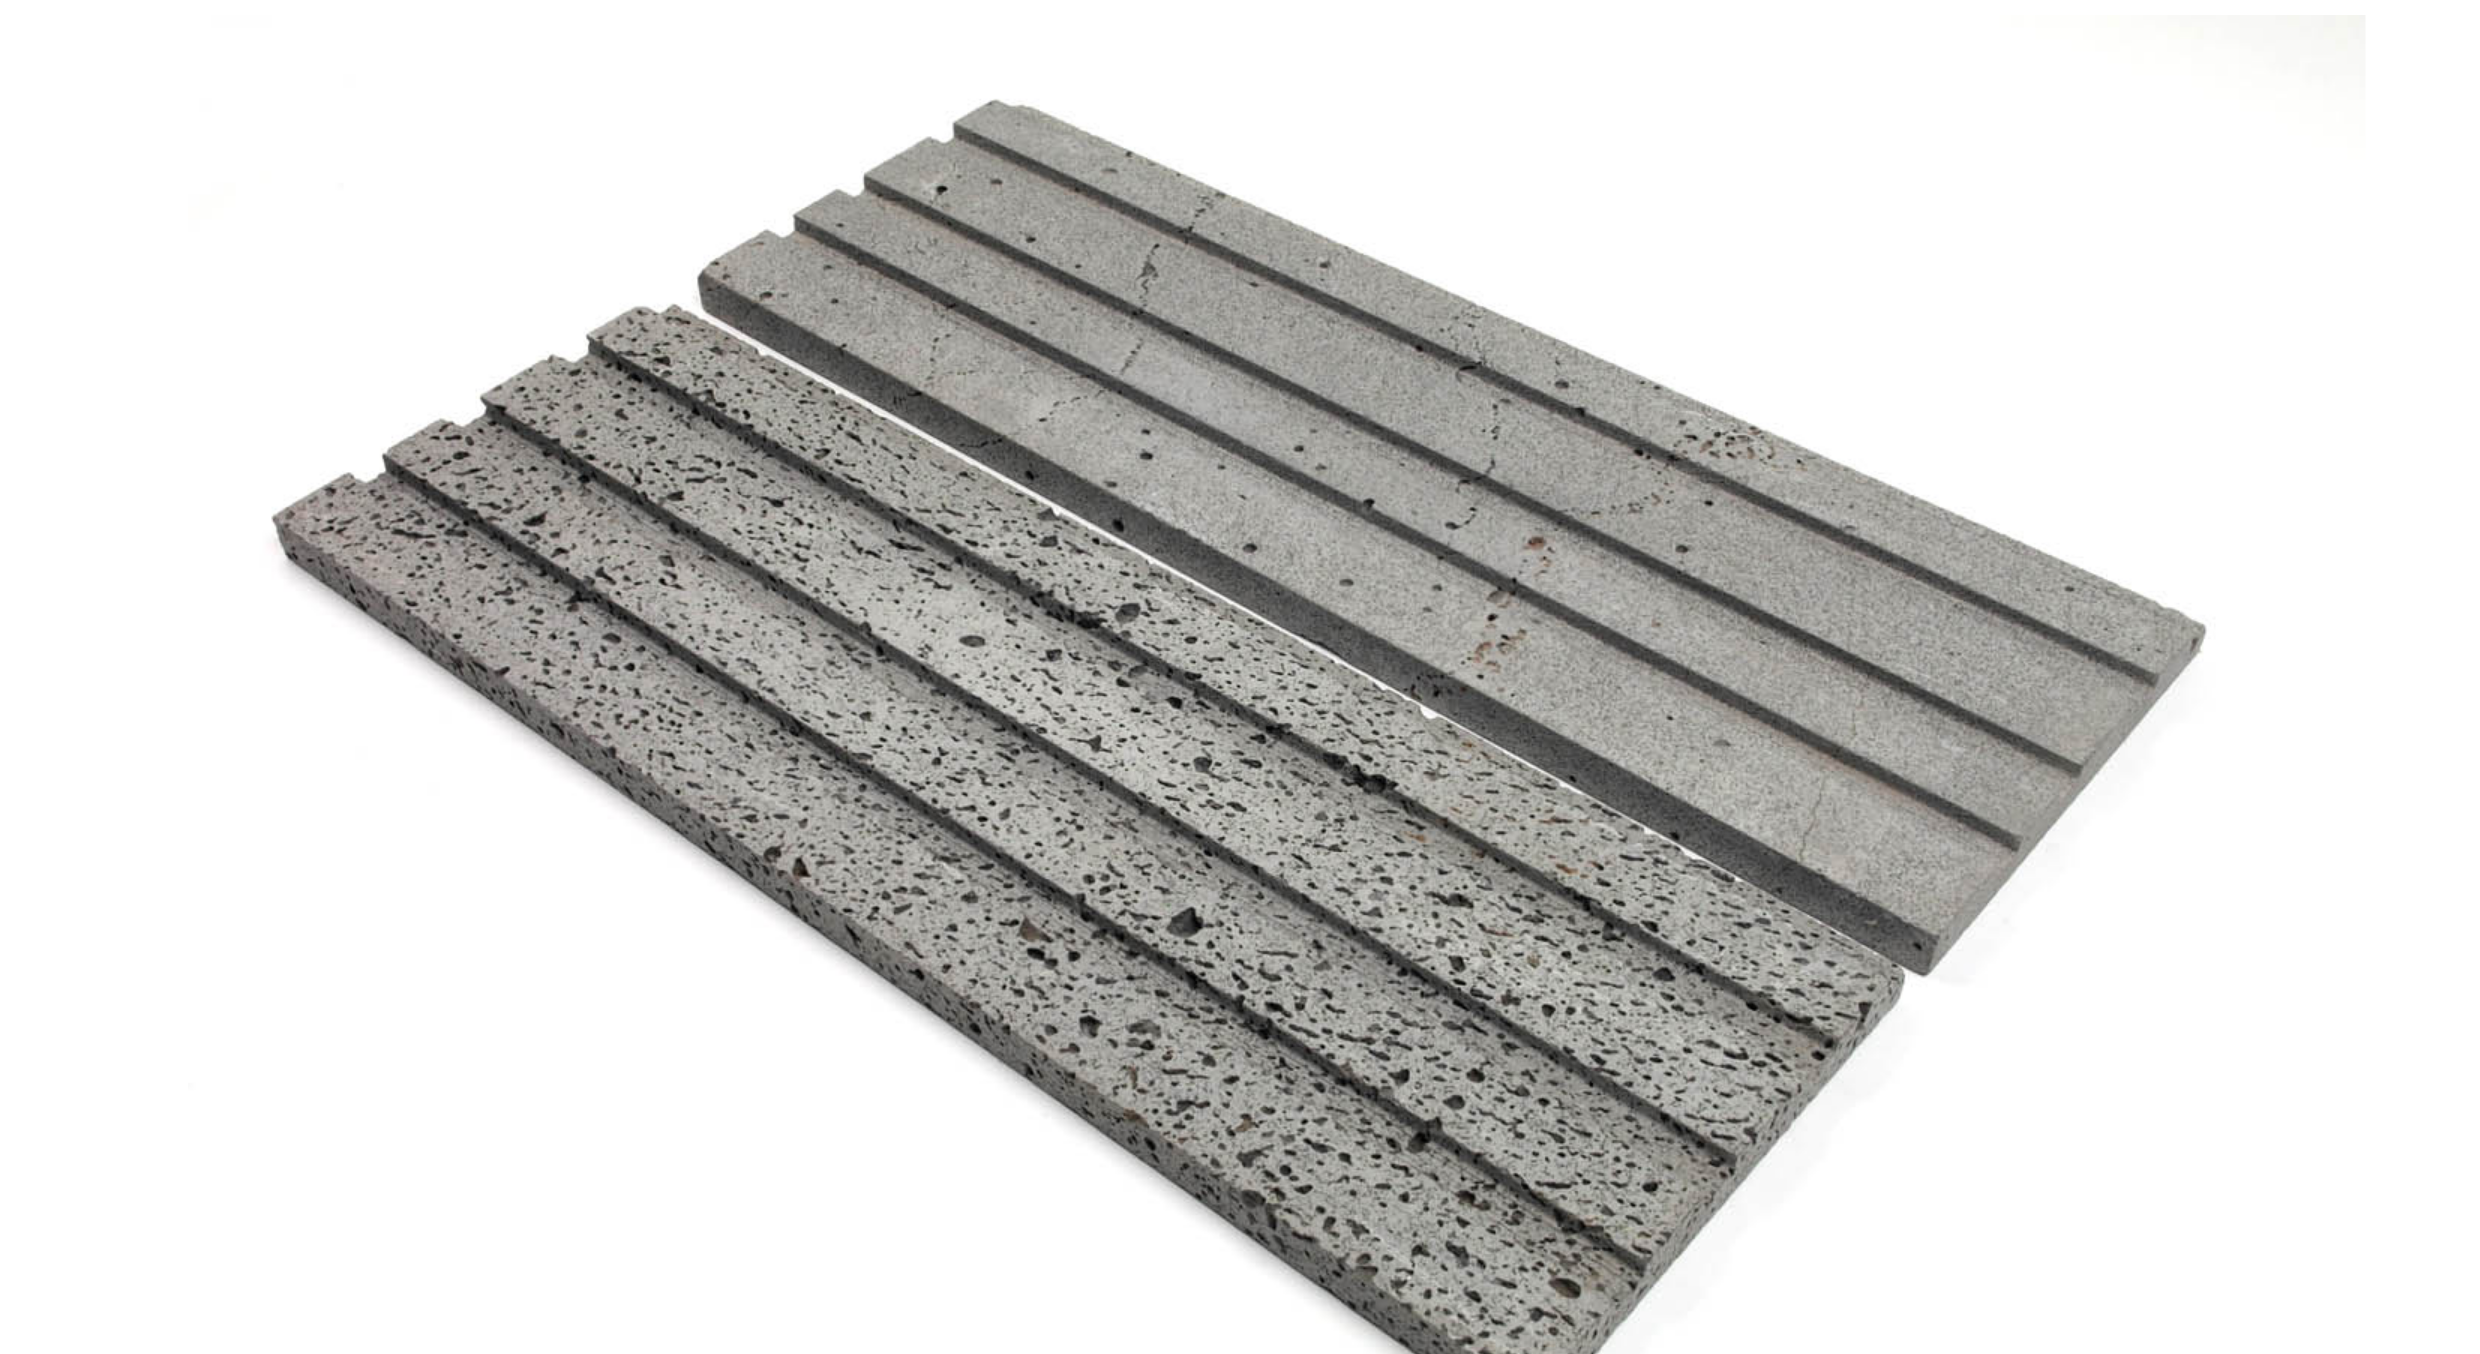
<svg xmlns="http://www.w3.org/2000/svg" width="2480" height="1354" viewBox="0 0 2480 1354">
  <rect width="100%" height="100%" fill="#fff"/>
  <image x="188" y="15" width="2178" height="1339" href="images/1.png"/>
</svg>
